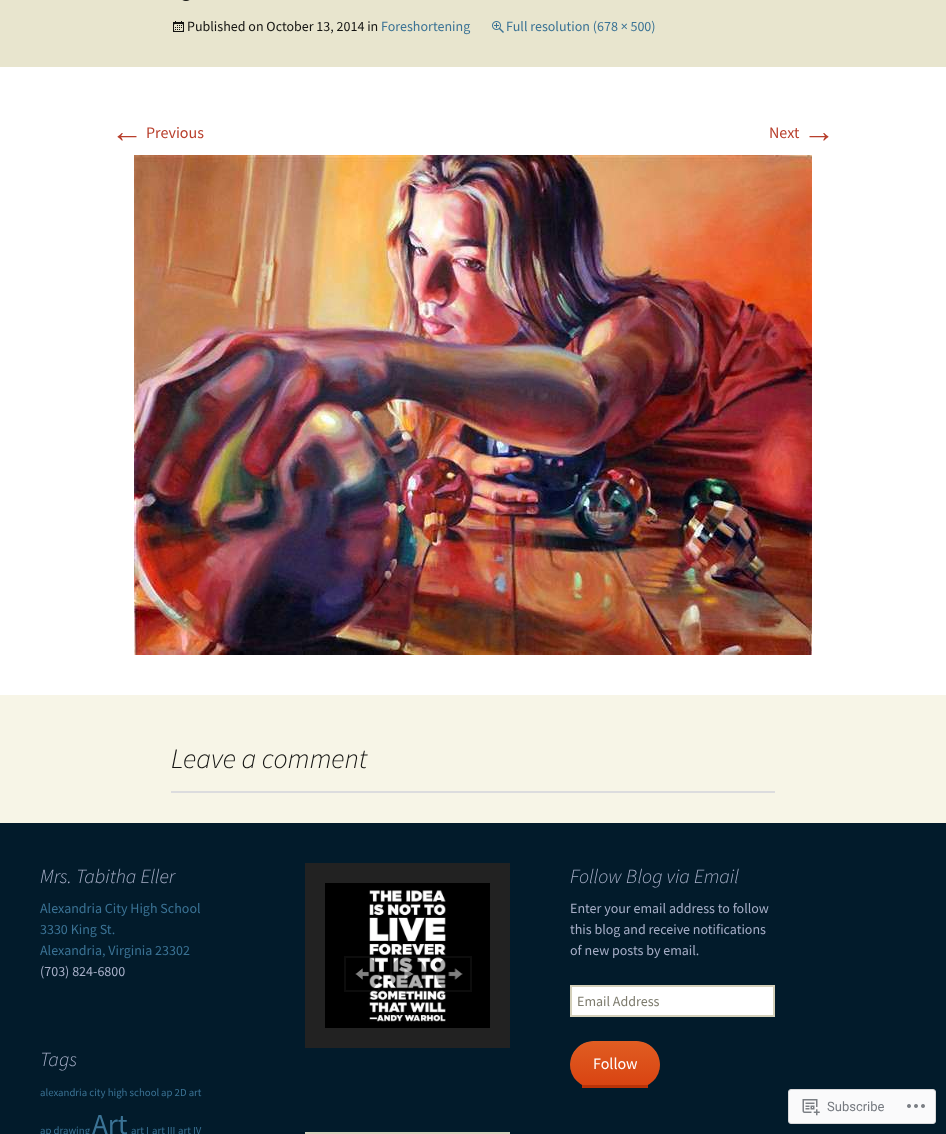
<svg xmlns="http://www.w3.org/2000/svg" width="946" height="1134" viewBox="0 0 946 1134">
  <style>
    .t1 { font: 14px Source Sans Pro; fill: #141412; }
    .t2 { font: 14px Source Sans Pro; fill: #3b7395; }
    .t3 { font: 32px Liberation Sans; fill: #b83f2c; }
    .t4 { font: 16px Source Sans Pro; fill: #b83f2c; }
    .t5 { font: italic 300 28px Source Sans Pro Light; fill: #141412; }
    .t6 { font: italic 300 20px Source Sans Pro Light; fill: #a7aec7; }
    .t7 { font: 14px Source Sans Pro; fill: #a7aec7; }
    .t8 { font: 14px Source Sans Pro; fill: #7d7b6d; }
    .t9 { font: 16px Source Sans Pro; fill: #fff; }
    .t10 { font: 10.75px Source Sans Pro; fill: #3b7395; }
    .t11 { font: 29px Source Sans Pro; fill: #3b7395; }
    .t12 { font: 13px Roboto; fill: #767a80; }
  </style>
  <defs>
    <clipPath id="clip1"><rect x="570" y="1041" width="90" height="47" rx="23.5"/></clipPath>
    <linearGradient id="g1" gradientUnits="userSpaceOnUse" x1="615" y1="1041" x2="615" y2="1085"><stop offset="0" stop-color="#e05d22"/><stop offset="1" stop-color="#d94412"/></linearGradient>
  </defs>
  <rect width="100%" height="100%" fill="#021b2b"/>
  <rect x="0" y="0" width="946" height="67" fill="#e8e5ce"/>
  <image x="182" y="0" width="8" height="1" href="images/1.png"/>
  <image x="173" y="21" width="11" height="11" href="images/2.png"/>
  <text x="187" y="31" class="t1">Published on October 13, 2014 in</text>
  <text x="381" y="31" class="t2">Foreshortening</text>
  <image x="492" y="21" width="12" height="12" href="images/3.png"/>
  <text x="506" y="31" class="t2">Full resolution (678 × 500)</text>
  <rect x="0" y="67" width="946" height="628" fill="#fff"/>
  <text x="111" y="142" class="t3">←</text>
  <text x="146" y="138" class="t4">Previous</text>
  <text x="769" y="138" class="t4">Next</text>
  <text x="803" y="142" class="t3">→</text>
  <image x="134" y="155" width="678" height="500" href="images/4.png"/>
  <rect x="0" y="695" width="946" height="128" fill="#f7f5e7"/>
  <text x="171" y="768" class="t5">Leave a comment</text>
  <rect x="171" y="791" width="604" height="2" fill="#dcdcde"/>
  <text x="40" y="883" class="t6">Mrs. Tabitha Eller</text>
  <text x="40" y="913" class="t2">Alexandria City High School</text>
  <text x="40" y="934" class="t2">3330 King St.</text>
  <text x="40" y="955" class="t2">Alexandria, Virginia 23302</text>
  <text x="40" y="976" class="t7">(703) 824-6800</text>
  <rect x="315" y="873" width="185" height="165" fill="none" stroke="#222" stroke-width="20"/>
  <rect x="325" y="883" width="165" height="145" fill="#000"/>
  <image x="368" y="890" width="78" height="132" href="images/5.png"/>
  <circle cx="362" cy="974" r="18" fill="#0000004d"/>
  <image x="355" y="968" width="14" height="12" href="images/6.png"/>
  <rect x="345" y="957" width="34" height="34" fill="none" stroke="#ffffff0d" stroke-width="2"/>
  <circle cx="408" cy="974" r="18" fill="#0000004d"/>
  <image x="404" y="968" width="11" height="13" href="images/7.png"/>
  <rect x="391" y="957" width="34" height="34" fill="none" stroke="#ffffff0d" stroke-width="2"/>
  <circle cx="454" cy="974" r="18" fill="#0000004d"/>
  <image x="448" y="968" width="15" height="12" href="images/8.png"/>
  <rect x="437" y="957" width="34" height="34" fill="none" stroke="#ffffff0d" stroke-width="2"/>
  <text x="570" y="883" class="t6">Follow Blog via Email</text>
  <text x="570" y="913" class="t7">Enter your email address to follow</text>
  <text x="570" y="934" class="t7">this blog and receive notifications</text>
  <text x="570" y="955" class="t7">of new posts by email.</text>
  <rect x="571" y="986" width="203" height="30" fill="#fff" stroke="#d4d0ba" stroke-width="2"/>
  <text x="577" y="1006" class="t8">Email Address</text>
  <rect x="570" y="1041" width="90" height="47" rx="23.5" fill="#32373c"/>
  <g clip-path="url(#clip1)">
    <path d="M593.5 1041H636.5C649.5 1041 660 1051.5 660 1064.5V1085H570V1064.5C570 1051.5 580.5 1041 593.5 1041Z" fill="url(#g1)"/>
  </g>
  <rect x="582" y="1085" width="66" height="3" fill="#b93207"/>
  <text x="593" y="1069" class="t9">Follow</text>
  <text x="40" y="1066" class="t6">Tags</text>
  <text x="40" y="1096" class="t10">alexandria city high school</text>
  <text x="161" y="1096" class="t10">ap 2D art</text>
  <text x="40" y="1134" class="t10">ap drawing</text>
  <text x="92" y="1134" class="t11">Art</text>
  <text x="131" y="1134" class="t10">art I</text>
  <text x="152" y="1134" class="t10">art III</text>
  <text x="178" y="1134" class="t10">art IV</text>
  <rect x="306" y="1133" width="203" height="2" fill="none" stroke="#d4d0ba" stroke-width="2"/>
  <rect x="788.5" y="1089.5" width="147" height="34" rx="2.5" fill="#fafafb" stroke="#d8d8da"/>
  <image x="802" y="1099" width="18" height="17" href="images/9.png"/>
  <text x="827" y="1111" class="t12">Subscribe</text>
  <image x="907" y="1104" width="18" height="4" href="images/10.png"/>
</svg>
